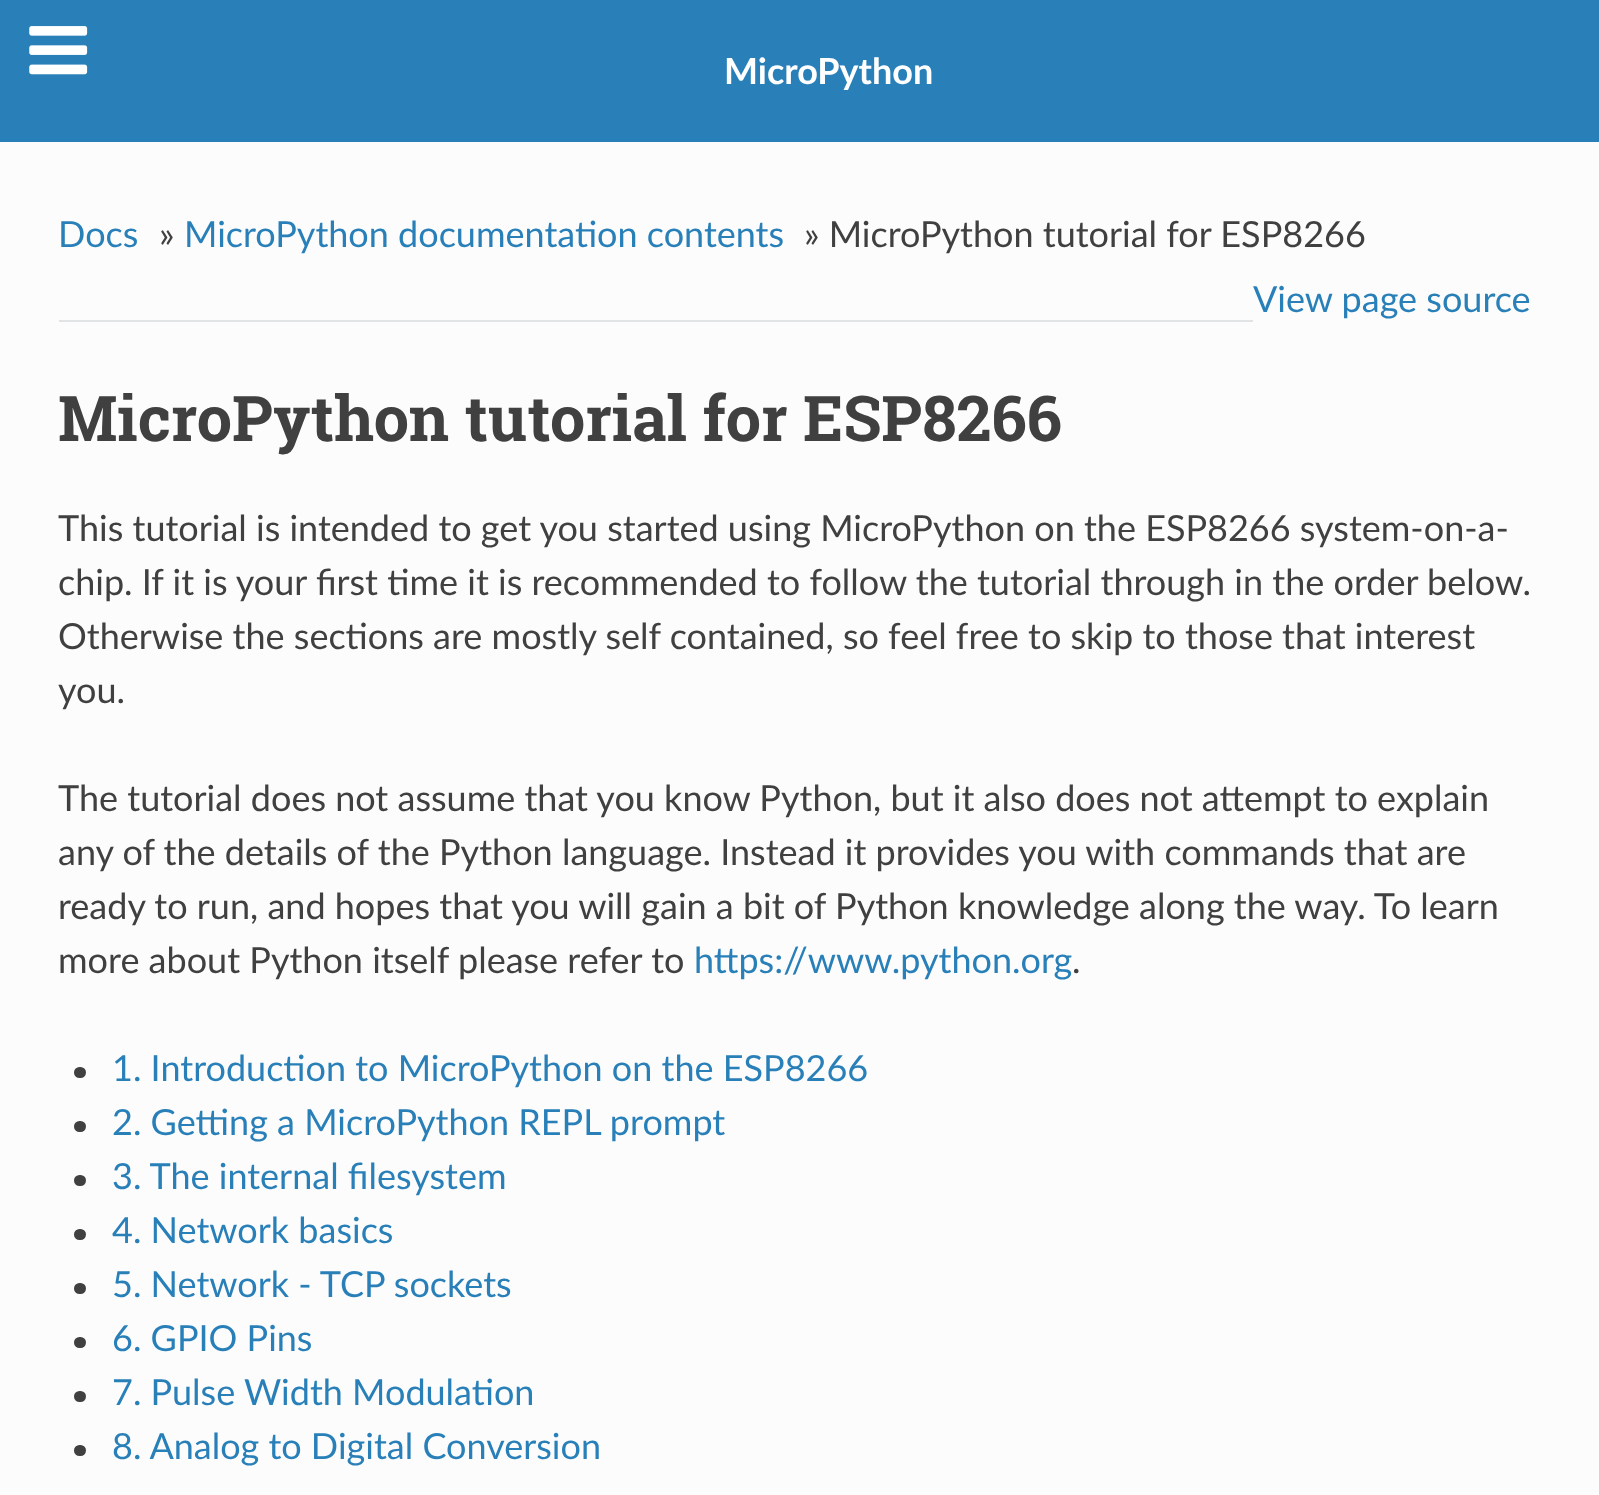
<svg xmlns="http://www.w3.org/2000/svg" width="1599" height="1495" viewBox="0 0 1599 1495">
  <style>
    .t1 { font: bold 36px Lato; fill: #fff; }
    .t2 { font: 36px Lato; fill: #2980b9; }
    .t3 { font: 36px Lato; fill: #404040; }
    .t4 { font: bold 63px Roboto Slab; fill: #404040; }
  </style>
  <rect width="100%" height="100%" fill="#fcfcfc"/>
  <rect x="0" y="0" width="1599" height="142" fill="#2980b9"/>
  <image x="29" y="26" width="59" height="49" href="images/1.png"/>
  <text x="724" y="84" class="t1">MicroPython</text>
  <text x="58" y="247" class="t2">Docs</text>
  <text x="159" y="247" class="t3">»</text>
  <text x="184" y="247" class="t2">MicroPython documentation contents</text>
  <text x="804" y="247" class="t3">» MicroPython tutorial for ESP8266</text>
  <text x="1253" y="312" class="t2">View page source</text>
  <rect x="59" y="320" width="1194" height="2" fill="#e1e4e5"/>
  <text x="58" y="441" class="t4">MicroPython tutorial for ESP8266</text>
  <text x="58" y="541" class="t3">This tutorial is intended to get you started using MicroPython on the ESP8266 system-on-a-</text>
  <text x="58" y="595" class="t3">chip. If it is your first time it is recommended to follow the tutorial through in the order below.</text>
  <text x="58" y="649" class="t3">Otherwise the sections are mostly self contained, so feel free to skip to those that interest</text>
  <text x="58" y="703" class="t3">you.</text>
  <text x="58" y="811" class="t3">The tutorial does not assume that you know Python, but it also does not attempt to explain</text>
  <text x="58" y="865" class="t3">any of the details of the Python language. Instead it provides you with commands that are</text>
  <text x="58" y="919" class="t3">ready to run, and hopes that you will gain a bit of Python knowledge along the way. To learn</text>
  <text x="58" y="973" class="t3">more about Python itself please refer to</text>
  <text x="694" y="973" class="t2">https://www.python.org</text>
  <text x="1072" y="973" class="t3">.</text>
  <rect x="74" y="1067" width="12" height="11" rx="5.5" fill="#404040"/>
  <text x="112" y="1081" class="t2">1. Introduction to MicroPython on the ESP8266</text>
  <rect x="74" y="1121" width="12" height="11" rx="5.5" fill="#404040"/>
  <text x="112" y="1135" class="t2">2. Getting a MicroPython REPL prompt</text>
  <rect x="74" y="1175" width="12" height="11" rx="5.5" fill="#404040"/>
  <text x="112" y="1189" class="t2">3. The internal filesystem</text>
  <rect x="74" y="1229" width="12" height="11" rx="5.5" fill="#404040"/>
  <text x="112" y="1243" class="t2">4. Network basics</text>
  <rect x="74" y="1283" width="12" height="11" rx="5.5" fill="#404040"/>
  <text x="112" y="1297" class="t2">5. Network - TCP sockets</text>
  <rect x="74" y="1337" width="12" height="11" rx="5.5" fill="#404040"/>
  <text x="112" y="1351" class="t2">6. GPIO Pins</text>
  <rect x="74" y="1391" width="12" height="11" rx="5.5" fill="#404040"/>
  <text x="112" y="1405" class="t2">7. Pulse Width Modulation</text>
  <rect x="74" y="1445" width="12" height="11" rx="5.5" fill="#404040"/>
  <text x="112" y="1459" class="t2">8. Analog to Digital Conversion</text>
</svg>
